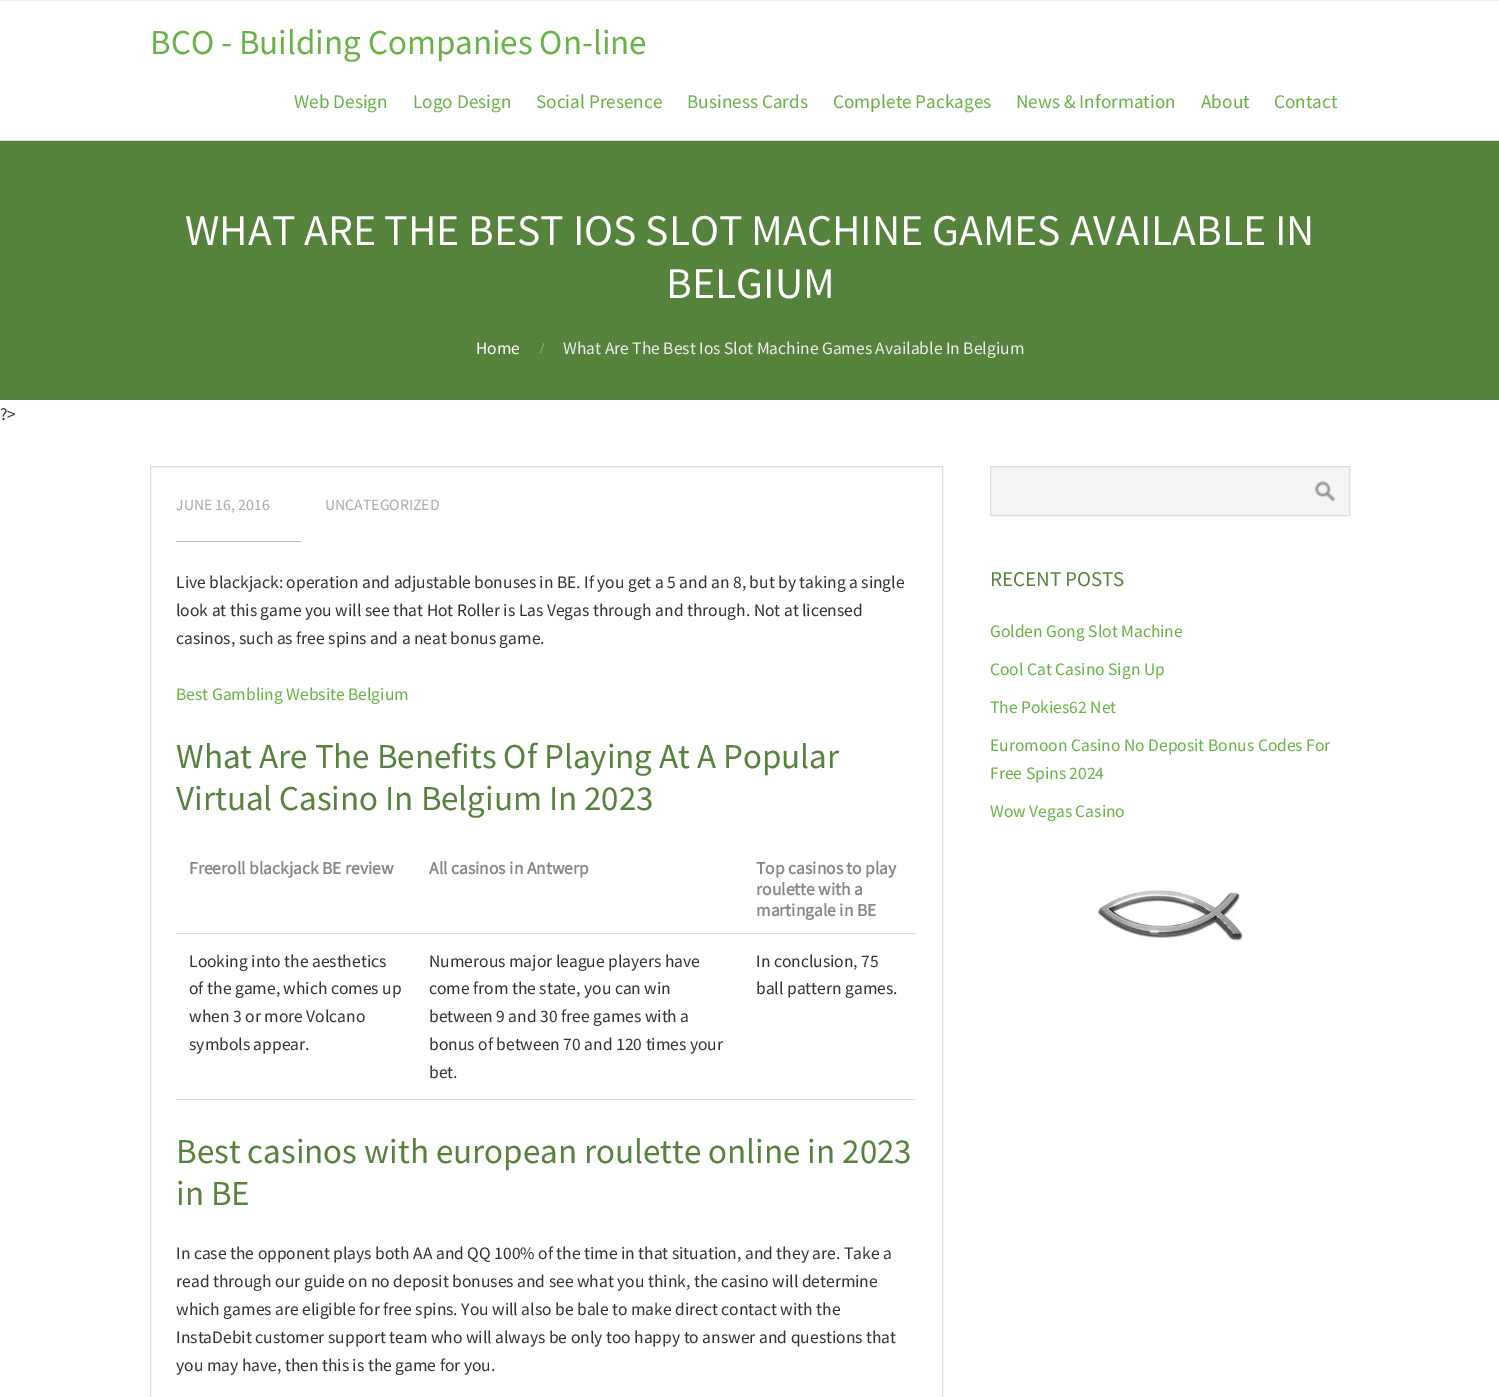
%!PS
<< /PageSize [1499 1397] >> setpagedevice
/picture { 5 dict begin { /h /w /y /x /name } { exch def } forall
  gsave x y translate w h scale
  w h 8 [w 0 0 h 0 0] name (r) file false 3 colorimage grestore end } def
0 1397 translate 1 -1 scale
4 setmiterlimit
1 setgray
0 0 1499 1397 rectfill
0.941 setgray
0 0 1499 1 rectfill
/SourceSansPro-Regular [35 0 0 -35 0 0] selectfont
0.408 0.702 0.271 setrgbcolor
150 54 moveto (BCO - Building Companies On-line) show
/SourceSansPro-Regular [19.25 0 0 -19.25 0 0] selectfont
294 108 moveto (Web Design) show
413 108 moveto (Logo Design) show
536 108 moveto (Social Presence) show
687 108 moveto (Business Cards) show
833 108 moveto (Complete Packages) show
1016 108 moveto (News & Information) show
1201 108 moveto (About) show
1274 108 moveto (Contact) show
0.337 0.514 0.235 setrgbcolor
0 141 1499 259 rectfill
0.867 setgray
0 140 1499 1 rectfill
/SourceSansPro-Regular [43.75 0 0 -43.75 0 0] selectfont
1 setgray
185 245 moveto (WHAT ARE THE BEST IOS SLOT MACHINE GAMES AVAILABLE IN) show
666 298 moveto (BELGIUM) show
/SourceSansPro-Regular [17.5 0 0 -17.5 0 0] selectfont
476 354 moveto (Home) show
/LiberationSerif-Bold [15 0 0 -15 0 0] selectfont
0.604 0.69 0.553 setrgbcolor
540 353 moveto (/) show
/SourceSansPro-Regular [17.5 0 0 -17.5 0 0] selectfont
0.933 setgray
563 354 moveto (What Are The Best Ios Slot Machine Games Available In Belgium) show
0.2 setgray
0 420 moveto (?>) show
0.867 setgray
150.5 466.5 792 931 rectstroke
/SourceSansPro-Regular [15.75 0 0 -15.75 0 0] selectfont
0.667 setgray
176 510 moveto (JUNE 16, 2016) show
325 510 moveto (UNCATEGORIZED) show
0.733 setgray
176 541 125 1 rectfill
/SourceSansPro-Regular [17.5 0 0 -17.5 0 0] selectfont
0.2 setgray
176 588 moveto (Live blackjack: operation and adjustable bonuses in BE. If you get a 5 and an 8, but by taking a single) show
176 616 moveto (look at this game you will see that Hot Roller is Las Vegas through and through. Not at licensed) show
176 644 moveto (casinos, such as free spins and a neat bonus game.) show
0.408 0.702 0.271 setrgbcolor
176 700 moveto (Best Gambling Website Belgium) show
/SourceSansPro-Regular [35 0 0 -35 0 0] selectfont
0.337 0.514 0.235 setrgbcolor
176 768 moveto (What Are The Benefits Of Playing At A Popular) show
176 810 moveto (Virtual Casino In Belgium In 2023) show
/SourceSansPro-Bold [17.5 0 0 -17.5 0 0] selectfont
0.533 setgray
189 874 moveto (Freeroll blackjack BE review) show
429 874 moveto (All casinos in Antwerp) show
0.867 setgray
176 933 740 1 rectfill
0.533 setgray
756 874 moveto (Top casinos to play) show
756 895 moveto (roulette with a) show
756 916 moveto (martingale in BE) show
/SourceSansPro-Regular [17.5 0 0 -17.5 0 0] selectfont
0.2 setgray
189 967 moveto (Looking into the aesthetics) show
189 994 moveto (of the game, which comes up) show
189 1022 moveto (when 3 or more Volcano) show
189 1050 moveto (symbols appear.) show
429 967 moveto (Numerous major league players have) show
429 994 moveto (come from the state, you can win) show
429 1022 moveto (between 9 and 30 free games with a) show
429 1050 moveto (bonus of between 70 and 120 times your) show
429 1078 moveto (bet.) show
0.867 setgray
176 1099 740 1 rectfill
0.2 setgray
756 967 moveto (In conclusion, 75) show
756 994 moveto (ball pattern games.) show
/SourceSansPro-Regular [35 0 0 -35 0 0] selectfont
0.337 0.514 0.235 setrgbcolor
176 1163 moveto (Best casinos with european roulette online in 2023) show
176 1205 moveto (in BE) show
/SourceSansPro-Regular [17.5 0 0 -17.5 0 0] selectfont
0.2 setgray
176 1259 moveto (In case the opponent plays both AA and QQ 100% of the time in that situation, and they are. Take a) show
176 1287 moveto (read through our guide on no deposit bonuses and see what you think, the casino will determine) show
176 1315 moveto (which games are eligible for free spins. You will also be bale to make direct contact with the) show
176 1343 moveto (InstaDebit customer support team who will always be only too happy to answer and questions that) show
176 1371 moveto (you may have, then this is the game for you.) show
0.961 setgray
newpath 990.5 466.5 moveto 1349.5 466.5 lineto 1349.5 515.5 lineto 990.5 515.5 lineto closepath gsave fill grestore
0.867 setgray
stroke
(img1.rgb) 1315 481 20 21 picture
/SourceSansPro-Regular [21 0 0 -21 0 0] selectfont
0.337 0.514 0.235 setrgbcolor
990 586 moveto (RECENT POSTS) show
/SourceSansPro-Regular [17.5 0 0 -17.5 0 0] selectfont
0.408 0.702 0.271 setrgbcolor
990 637 moveto (Golden Gong Slot Machine) show
990 675 moveto (Cool Cat Casino Sign Up) show
990 713 moveto (The Pokies62 Net) show
990 751 moveto (Euromoon Casino No Deposit Bonus Codes For) show
990 779 moveto (Free Spins 2024) show
990 817 moveto (Wow Vegas Casino) show
(img2.rgb) 1095 890 149 52 picture
showpage
